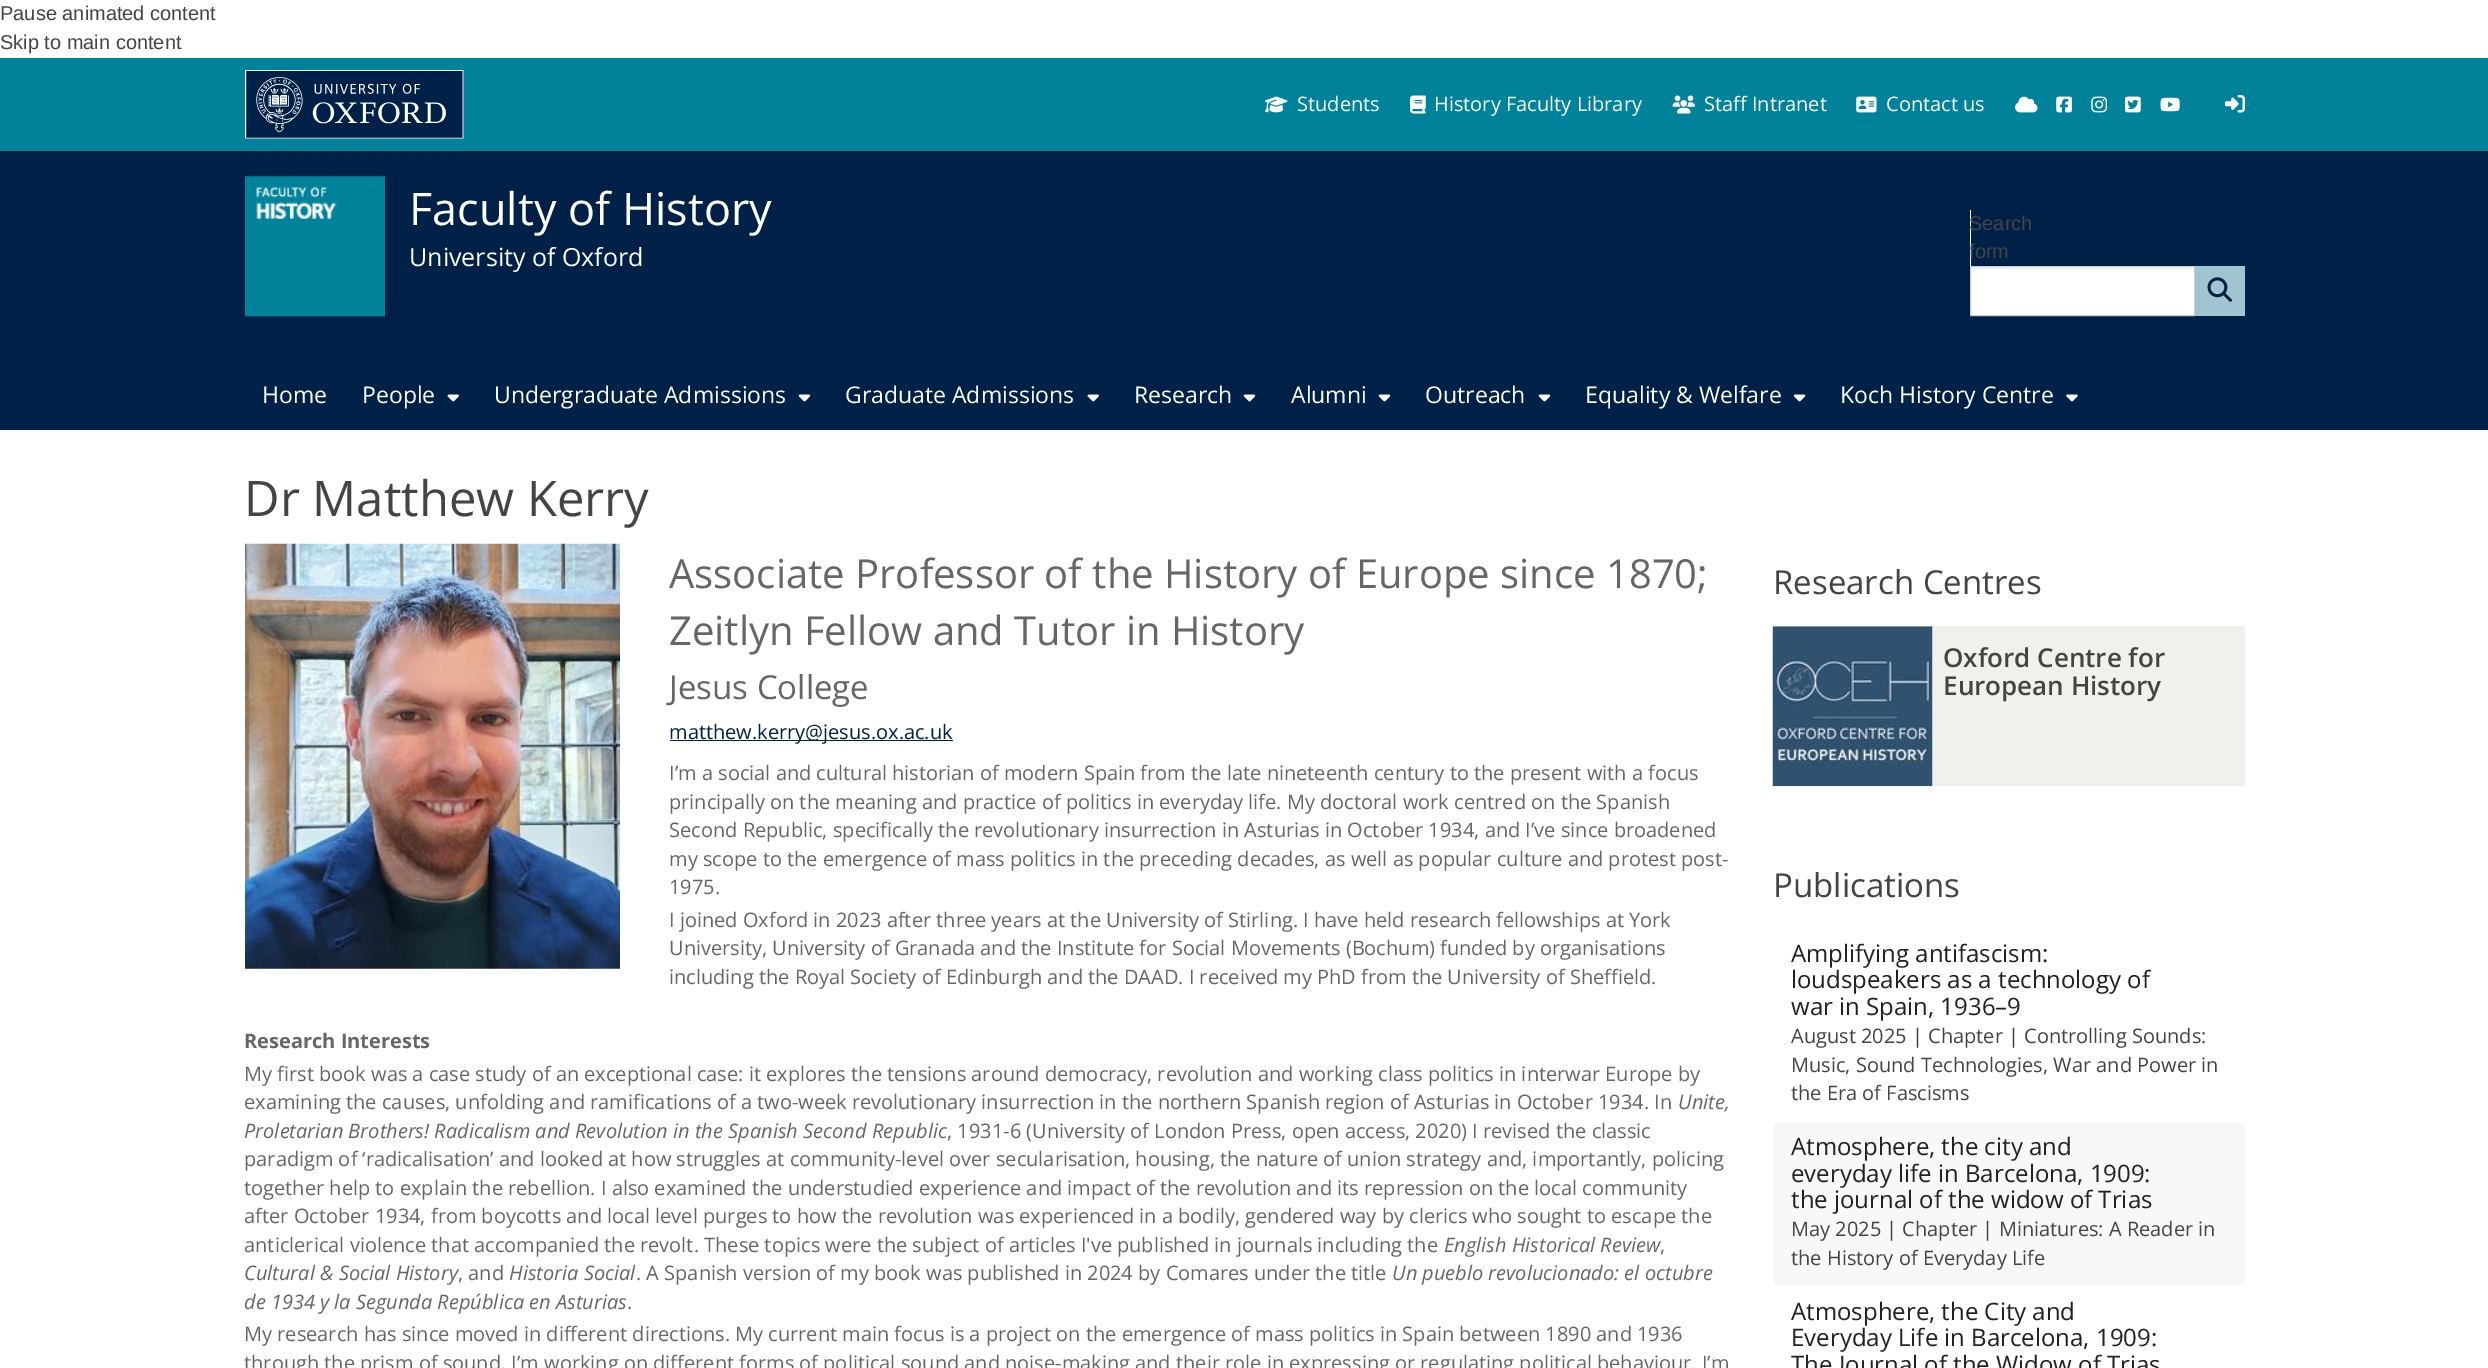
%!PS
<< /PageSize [2488 1368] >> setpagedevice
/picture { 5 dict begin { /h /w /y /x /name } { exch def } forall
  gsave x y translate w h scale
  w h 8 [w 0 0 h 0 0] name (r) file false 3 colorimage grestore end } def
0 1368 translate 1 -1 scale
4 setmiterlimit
1 setgray
0 0 2488 1368 rectfill
/LiberationSans-Regular [20 0 0 -20 0 0] selectfont
0.267 setgray
0 20 moveto (Pause animated content) show
0 49 moveto (Skip to main content) show
0 0.51 0.604 setrgbcolor
0 58 2488 93 rectfill
(img1.rgb) 245 70 219 69 picture
(img2.rgb) 1265 96 23 17 picture
/OpenSans-Regular [20 0 0 -20 0 0] selectfont
1 setgray
1297 111 moveto (Students) show
(img3.rgb) 1410 95 16 19 picture
1434 111 moveto (History Faculty Library) show
(img4.rgb) 1672 95 23 19 picture
1704 111 moveto (Staff Intranet) show
(img5.rgb) 1856 96 21 17 picture
1886 111 moveto (Contact us) show
(img6.rgb) 2015 96 23 17 picture
(img7.rgb) 2056 96 16 17 picture
(img8.rgb) 2091 96 16 17 picture
(img9.rgb) 2125 96 16 17 picture
(img10.rgb) 2160 97 20 15 picture
(img11.rgb) 2225 95 20 18 picture
0 0.129 0.278 setrgbcolor
0 151 2488 279 rectfill
(img12.rgb) 245 176 140 141 picture
/OpenSans-Regular [45 0 0 -45 0 0] selectfont
1 setgray
409 225 moveto (Faculty of History) show
/OpenSans-Regular [25 0 0 -25 0 0] selectfont
409 266 moveto (University of Oxford) show
1970 210 1 56 rectfill
/LiberationSans-Regular [20 0 0 -20 0 0] selectfont
0.267 setgray
1969 230 moveto (Search) show
1969 258 moveto (form) show
1 setgray
1971 267 223 48 rectfill
0.925 setgray
1971 268 223 1 rectfill
0.8 setgray
1970.5 266.5 224 49 rectstroke
0.631 0.769 0.816 setrgbcolor
2195 266 50 50 rectfill
(img13.rgb) 2207 277 25 25 picture
/OpenSans-Regular [23 0 0 -23 0 0] selectfont
1 setgray
262 403 moveto (Home) show
362 403 moveto (People) show
(img14.rgb) 447 394 12 8 picture
494 403 moveto (Undergraduate Admissions) show
(img15.rgb) 798 394 13 8 picture
845 403 moveto (Graduate Admissions) show
(img14.rgb) 1087 394 12 8 picture
1134 403 moveto (Research) show
(img15.rgb) 1243 394 13 8 picture
1291 403 moveto (Alumni) show
(img15.rgb) 1378 394 13 8 picture
1425 403 moveto (Outreach) show
(img15.rgb) 1538 394 13 8 picture
1585 403 moveto (Equality & Welfare) show
(img15.rgb) 1793 394 13 8 picture
1840 403 moveto (Koch History Centre) show
(img16.rgb) 2066 394 12 8 picture
/OpenSans-Regular [49 0 0 -49 0 0] selectfont
0.267 setgray
244 516 moveto (Dr Matthew Kerry) show
(img17.rgb) 245 543 375 426 picture
/OpenSans-Regular [40 0 0 -40 0 0] selectfont
0.4 setgray
669 588 moveto (Associate Professor of the History of Europe since 1870;) show
669 645 moveto (Zeitlyn Fellow and Tutor in History) show
/OpenSans-Regular [33 0 0 -33 0 0] selectfont
669 699 moveto (Jesus College) show
0 0.129 0.278 setrgbcolor
670 740 283 1 rectfill
/OpenSans-Regular [20 0 0 -20 0 0] selectfont
669 739 moveto (matthew.kerry@jesus.ox.ac.uk) show
0.4 setgray
669 780 moveto (I’m a social and cultural historian of modern Spain from the late nineteenth century to the present with a focus) show
669 809 moveto (principally on the meaning and practice of politics in everyday life. My doctoral work centred on the Spanish) show
669 837 moveto (Second Republic, specifically the revolutionary insurrection in Asturias in October 1934, and I’ve since broadened) show
669 866 moveto (my scope to the emergence of mass politics in the preceding decades, as well as popular culture and protest post-) show
669 894 moveto (1975.) show
669 927 moveto (I joined Oxford in 2023 after three years at the University of Stirling. I have held research fellowships at York) show
669 955 moveto (University, University of Granada and the Institute for Social Movements \(Bochum\) funded by organisations) show
669 984 moveto (including the Royal Society of Edinburgh and the DAAD. I received my PhD from the University of Sheffield.) show
/OpenSans-Bold [20 0 0 -20 0 0] selectfont
244 1048 moveto (Research Interests) show
/OpenSans-Regular [20 0 0 -20 0 0] selectfont
244 1081 moveto (My first book was a case study of an exceptional case: it explores the tensions around democracy, revolution and working class politics in interwar Europe by) show
244 1109 moveto (examining the causes, unfolding and ramifications of a two-week revolutionary insurrection in the northern Spanish region of Asturias in October 1934. In) show
/OpenSans-Italic [20 0 0 -20 0 0] selectfont
1678 1109 moveto (Unite,) show
244 1138 moveto (Proletarian Brothers! Radicalism and Revolution in the Spanish Second Republic) show
/OpenSans-Regular [20 0 0 -20 0 0] selectfont
947 1138 moveto (, 1931-6 \(University of London Press, open access, 2020\) I revised the classic) show
244 1166 moveto (paradigm of ‘radicalisation’ and looked at how struggles at community-level over secularisation, housing, the nature of union strategy and, importantly, policing) show
244 1195 moveto (together help to explain the rebellion. I also examined the understudied experience and impact of the revolution and its repression on the local community) show
244 1223 moveto (after October 1934, from boycotts and local level purges to how the revolution was experienced in a bodily, gendered way by clerics who sought to escape the) show
244 1252 moveto (anticlerical violence that accompanied the revolt. These topics were the subject of articles I've published in journals including the) show
/OpenSans-Italic [20 0 0 -20 0 0] selectfont
1444 1252 moveto (English Historical Review) show
/OpenSans-Regular [20 0 0 -20 0 0] selectfont
1660 1252 moveto (,) show
/OpenSans-Italic [20 0 0 -20 0 0] selectfont
244 1280 moveto (Cultural & Social History) show
/OpenSans-Regular [20 0 0 -20 0 0] selectfont
458 1280 moveto (, and) show
/OpenSans-Italic [20 0 0 -20 0 0] selectfont
509 1280 moveto (Historia Social) show
/OpenSans-Regular [20 0 0 -20 0 0] selectfont
636 1280 moveto (. A Spanish version of my book was published in 2024 by Comares under the title) show
/OpenSans-Italic [20 0 0 -20 0 0] selectfont
1392 1280 moveto (Un pueblo revolucionado: el octubre) show
244 1309 moveto (de 1934 y la Segunda República en Asturias) show
/OpenSans-Regular [20 0 0 -20 0 0] selectfont
627 1309 moveto (.) show
244 1341 moveto (My research has since moved in different directions. My current main focus is a project on the emergence of mass politics in Spain between 1890 and 1936) show
244 1370 moveto (through the prism of sound. I’m working on different forms of political sound and noise-making and their role in expressing or regulating political behaviour. I’m) show
/OpenSans-Regular [33 0 0 -33 0 0] selectfont
0.267 setgray
1773 594 moveto (Research Centres) show
0.941 0.941 0.925 setrgbcolor
1773 626 472 160 rectfill
(img18.rgb) 1772 626 161 161 picture
/OpenSans-SemiBold [26 0 0 -26 0 0] selectfont
0.267 setgray
1943 667 moveto (Oxford Centre for) show
1943 695 moveto (European History) show
/OpenSans-Regular [33 0 0 -33 0 0] selectfont
1773 897 moveto (Publications) show
/OpenSans-Regular [24 0 0 -24 0 0] selectfont
0.133 setgray
1791 962 moveto (Amplifying antifascism:) show
1791 988 moveto (loudspeakers as a technology of) show
1791 1015 moveto (war in Spain, 1936–9) show
/OpenSans-Regular [20 0 0 -20 0 0] selectfont
0.267 setgray
1791 1043 moveto (August 2025 | Chapter | Controlling Sounds:) show
1791 1072 moveto (Music, Sound Technologies, War and Power in) show
1791 1100 moveto (the Era of Fascisms) show
0.973 setgray
1773 1123 472 162 rectfill
/OpenSans-Regular [24 0 0 -24 0 0] selectfont
0.133 setgray
1791 1155 moveto (Atmosphere, the city and) show
1791 1182 moveto (everyday life in Barcelona, 1909:) show
1791 1208 moveto (the journal of the widow of Trias) show
/OpenSans-Regular [20 0 0 -20 0 0] selectfont
0.267 setgray
1791 1236 moveto (May 2025 | Chapter | Miniatures: A Reader in) show
1791 1265 moveto (the History of Everyday Life) show
/OpenSans-Regular [24 0 0 -24 0 0] selectfont
0.133 setgray
1791 1320 moveto (Atmosphere, the City and) show
1791 1346 moveto (Everyday Life in Barcelona, 1909:) show
1791 1373 moveto (The Journal of the Widow of Trias) show
showpage
